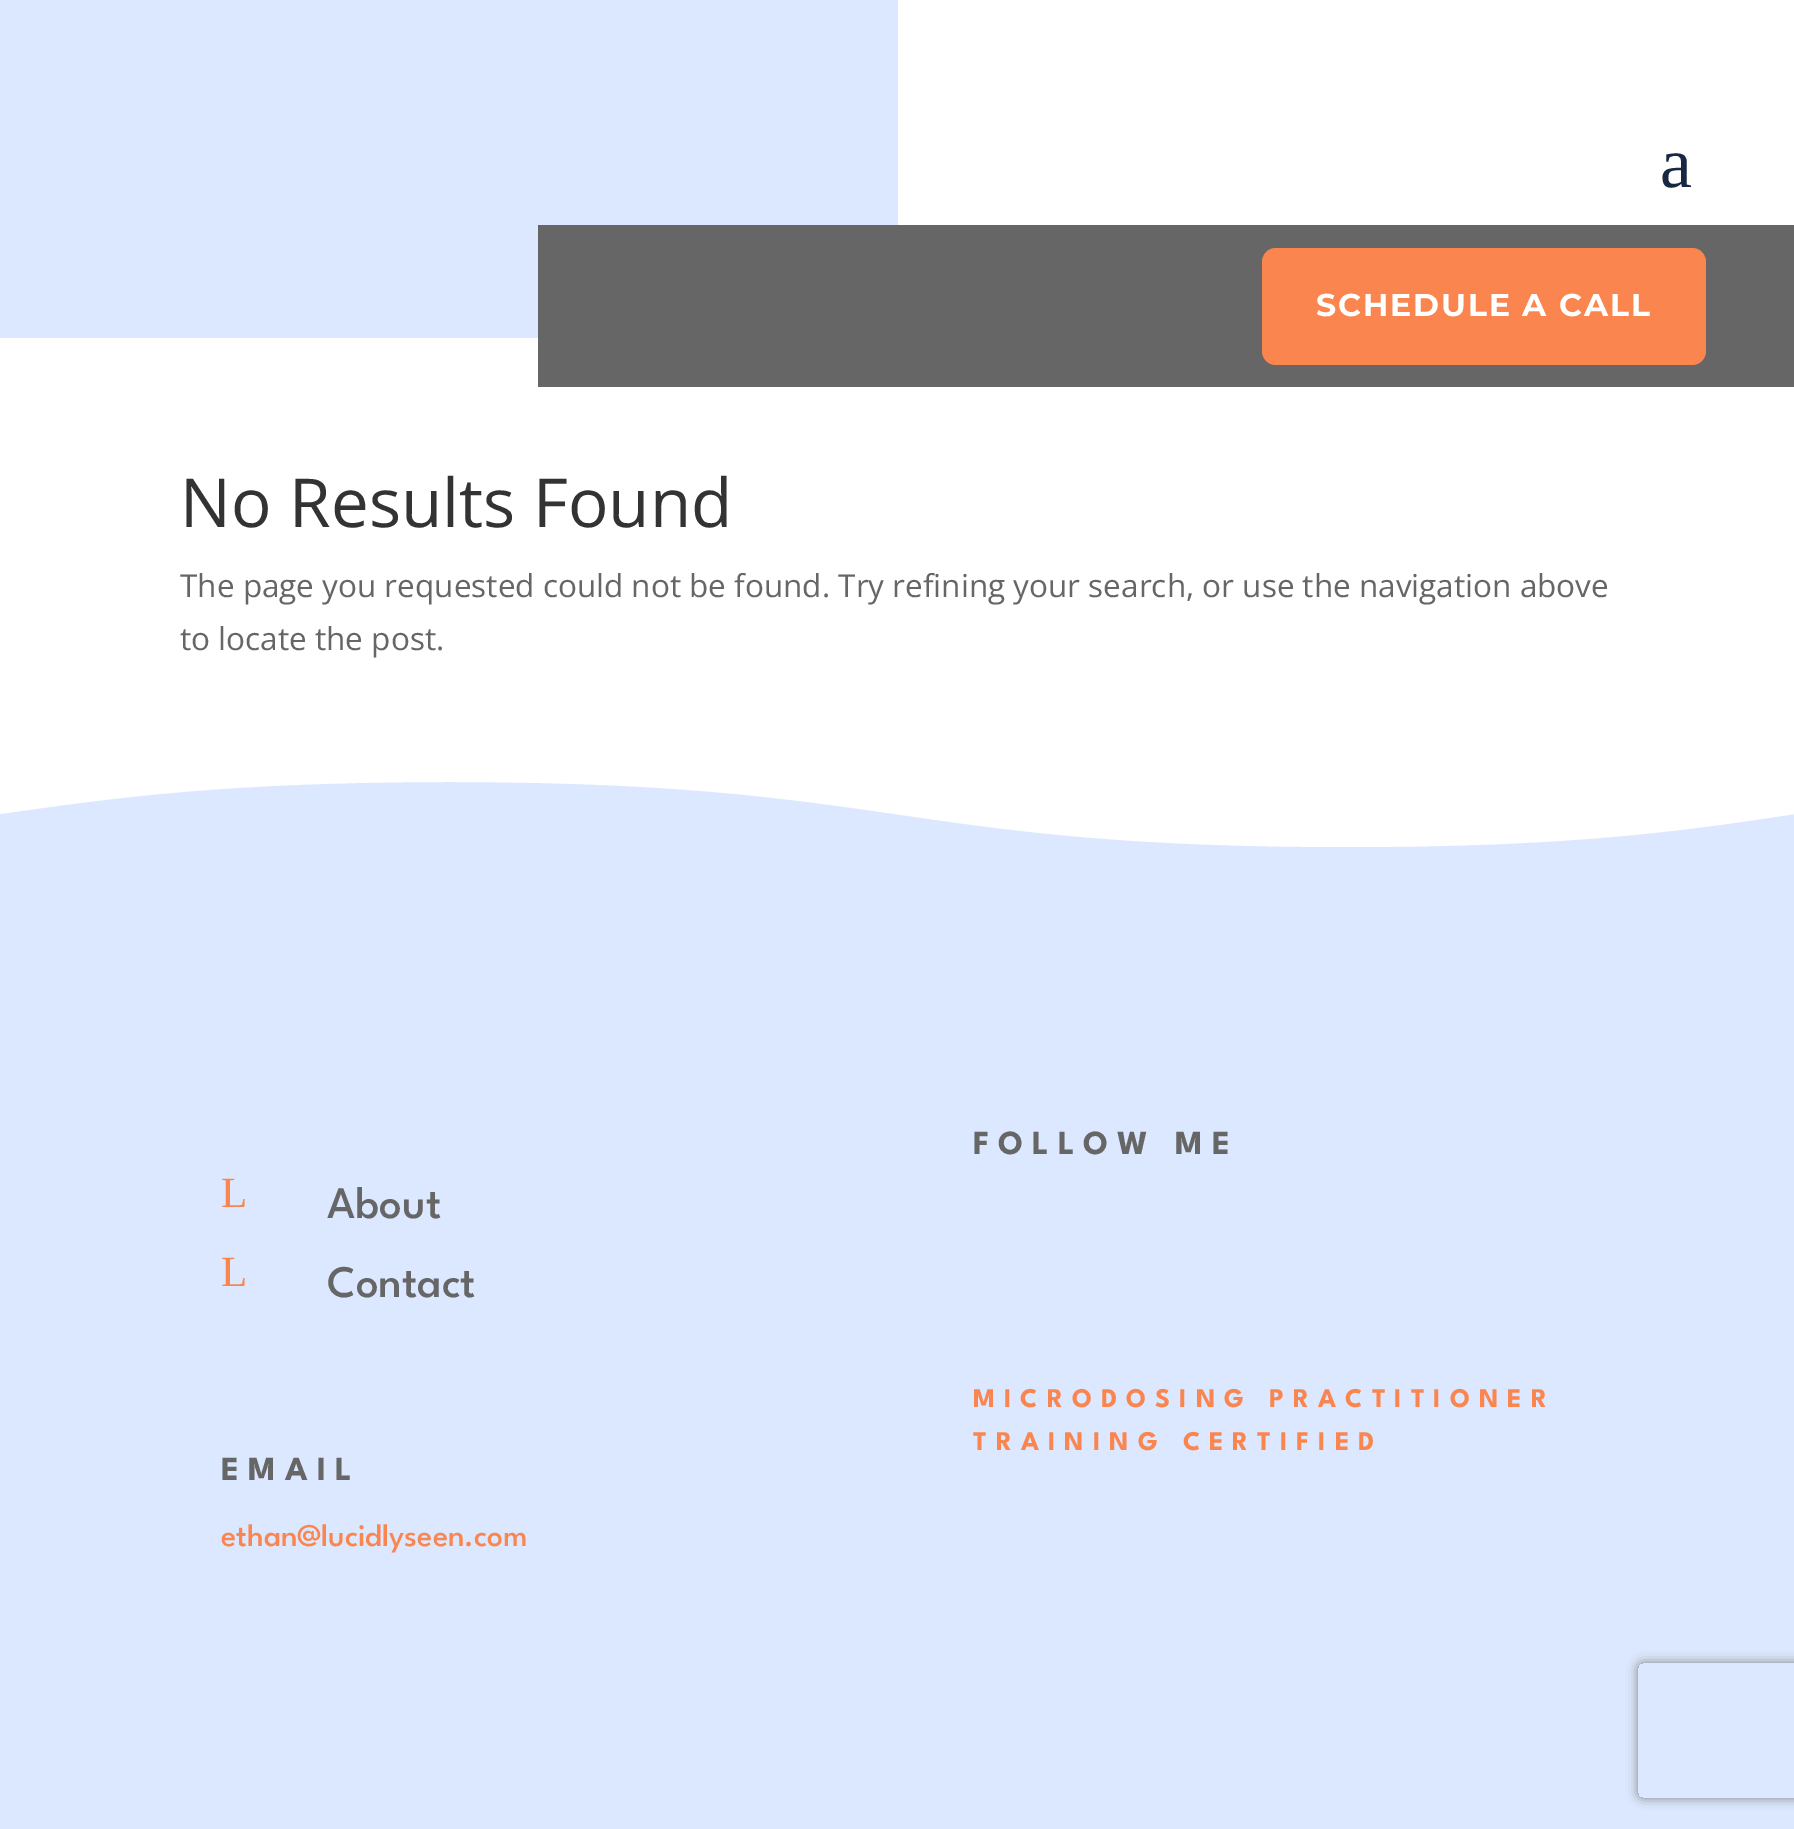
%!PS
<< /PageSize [1794 1829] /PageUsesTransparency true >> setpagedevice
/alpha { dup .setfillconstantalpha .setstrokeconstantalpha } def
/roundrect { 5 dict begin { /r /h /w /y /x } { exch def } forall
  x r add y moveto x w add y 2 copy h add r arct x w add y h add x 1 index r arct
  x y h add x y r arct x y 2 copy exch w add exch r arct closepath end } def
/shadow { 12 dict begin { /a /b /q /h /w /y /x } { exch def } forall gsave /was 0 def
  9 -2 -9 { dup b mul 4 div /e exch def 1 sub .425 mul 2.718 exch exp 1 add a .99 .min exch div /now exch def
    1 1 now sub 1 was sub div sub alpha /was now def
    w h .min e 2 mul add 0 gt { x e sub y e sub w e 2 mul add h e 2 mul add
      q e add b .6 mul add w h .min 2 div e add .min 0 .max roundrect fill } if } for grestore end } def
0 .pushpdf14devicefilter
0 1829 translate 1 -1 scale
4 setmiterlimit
1 setgray
0 0 1794 1829 rectfill
0.863 0.91 1 setrgbcolor
0 0 898 338 rectfill
/LiberationSerif-Regular [72 0 0 -72 0 0] selectfont
0.094 0.157 0.267 setrgbcolor
1660 187 moveto (a) show
0.4 setgray
538 225 1256 162 rectfill
0.98 0.522 0.31 setrgbcolor
1262 248 444 117 14 roundrect fill
/Montserrat-Bold [31.5 0 0 -31.5 0 0] selectfont
1 setgray
1316 316 moveto 1.9 0 (SCHEDULE A CALL) ashow
/OpenSans-Regular [67.5 0 0 -67.5 0 0] selectfont
0.2 setgray
180 527 moveto (No Results Found) show
/OpenSans-Regular [31.5 0 0 -31.5 0 0] selectfont
0.4 setgray
180 597 moveto (The page you requested could not be found. Try refining your search, or use the navigation above) show
180 650 moveto (to locate the post.) show
0.863 0.91 1 setrgbcolor
0 782 1794 1047 rectfill
gsave
0 761 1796 108 rectclip
1 setgray
newpath 449 782 moveto 224 782 112 798 0 814 curveto 0 760 lineto 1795 760 lineto 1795 814 lineto 1683 831 1571 847 1347 847 curveto 898 847 898 782 449 782 curveto closepath fill
grestore
/LiberationSerif-Regular [43 0 0 -43 0 0] selectfont
0.98 0.522 0.31 setrgbcolor
221 1207 moveto (L) show
/LeagueSpartan-Medium [45 0 0 -45 0 0] selectfont
0.4 setgray
327 1218 moveto (About) show
/LiberationSerif-Regular [43 0 0 -43 0 0] selectfont
0.98 0.522 0.31 setrgbcolor
221 1286 moveto (L) show
/LeagueSpartan-Medium [45 0 0 -45 0 0] selectfont
0.4 setgray
327 1297 moveto (Contact) show
/LeagueSpartan-Bold [33.75 0 0 -33.75 0 0] selectfont
221 1480 moveto 9 0 (EMAIL) ashow
/LeagueSpartan-Medium [31.5 0 0 -31.5 0 0] selectfont
0.98 0.522 0.31 setrgbcolor
221 1546 moveto (ethan@lucidlyseen.com) show
/LeagueSpartan-Bold [33.75 0 0 -33.75 0 0] selectfont
0.4 setgray
973 1154 moveto 9 0 (FOLLOW ME) ashow
/LeagueSpartan-Bold [27 0 0 -27 0 0] selectfont
0.98 0.522 0.31 setrgbcolor
973 1407 moveto 9 0 (MICRODOSING PRACTITIONER) ashow
973 1450 moveto 9 0 (TRAINING CERTIFIED) ashow
gsave
newpath 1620 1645 moveto 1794 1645 lineto 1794 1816 lineto 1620 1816 lineto closepath 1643 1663 moveto 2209 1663 lineto 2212 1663 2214 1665 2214 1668 curveto 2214 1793 lineto 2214 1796 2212 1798 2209 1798 curveto 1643 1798 lineto 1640 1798 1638 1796 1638 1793 curveto 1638 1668 lineto 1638 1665 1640 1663 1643 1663 curveto closepath eoclip newpath
0.502 setgray
1638 1663 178 135 5 5.5 1 shadow
grestore
.poppdf14devicefilter showpage
